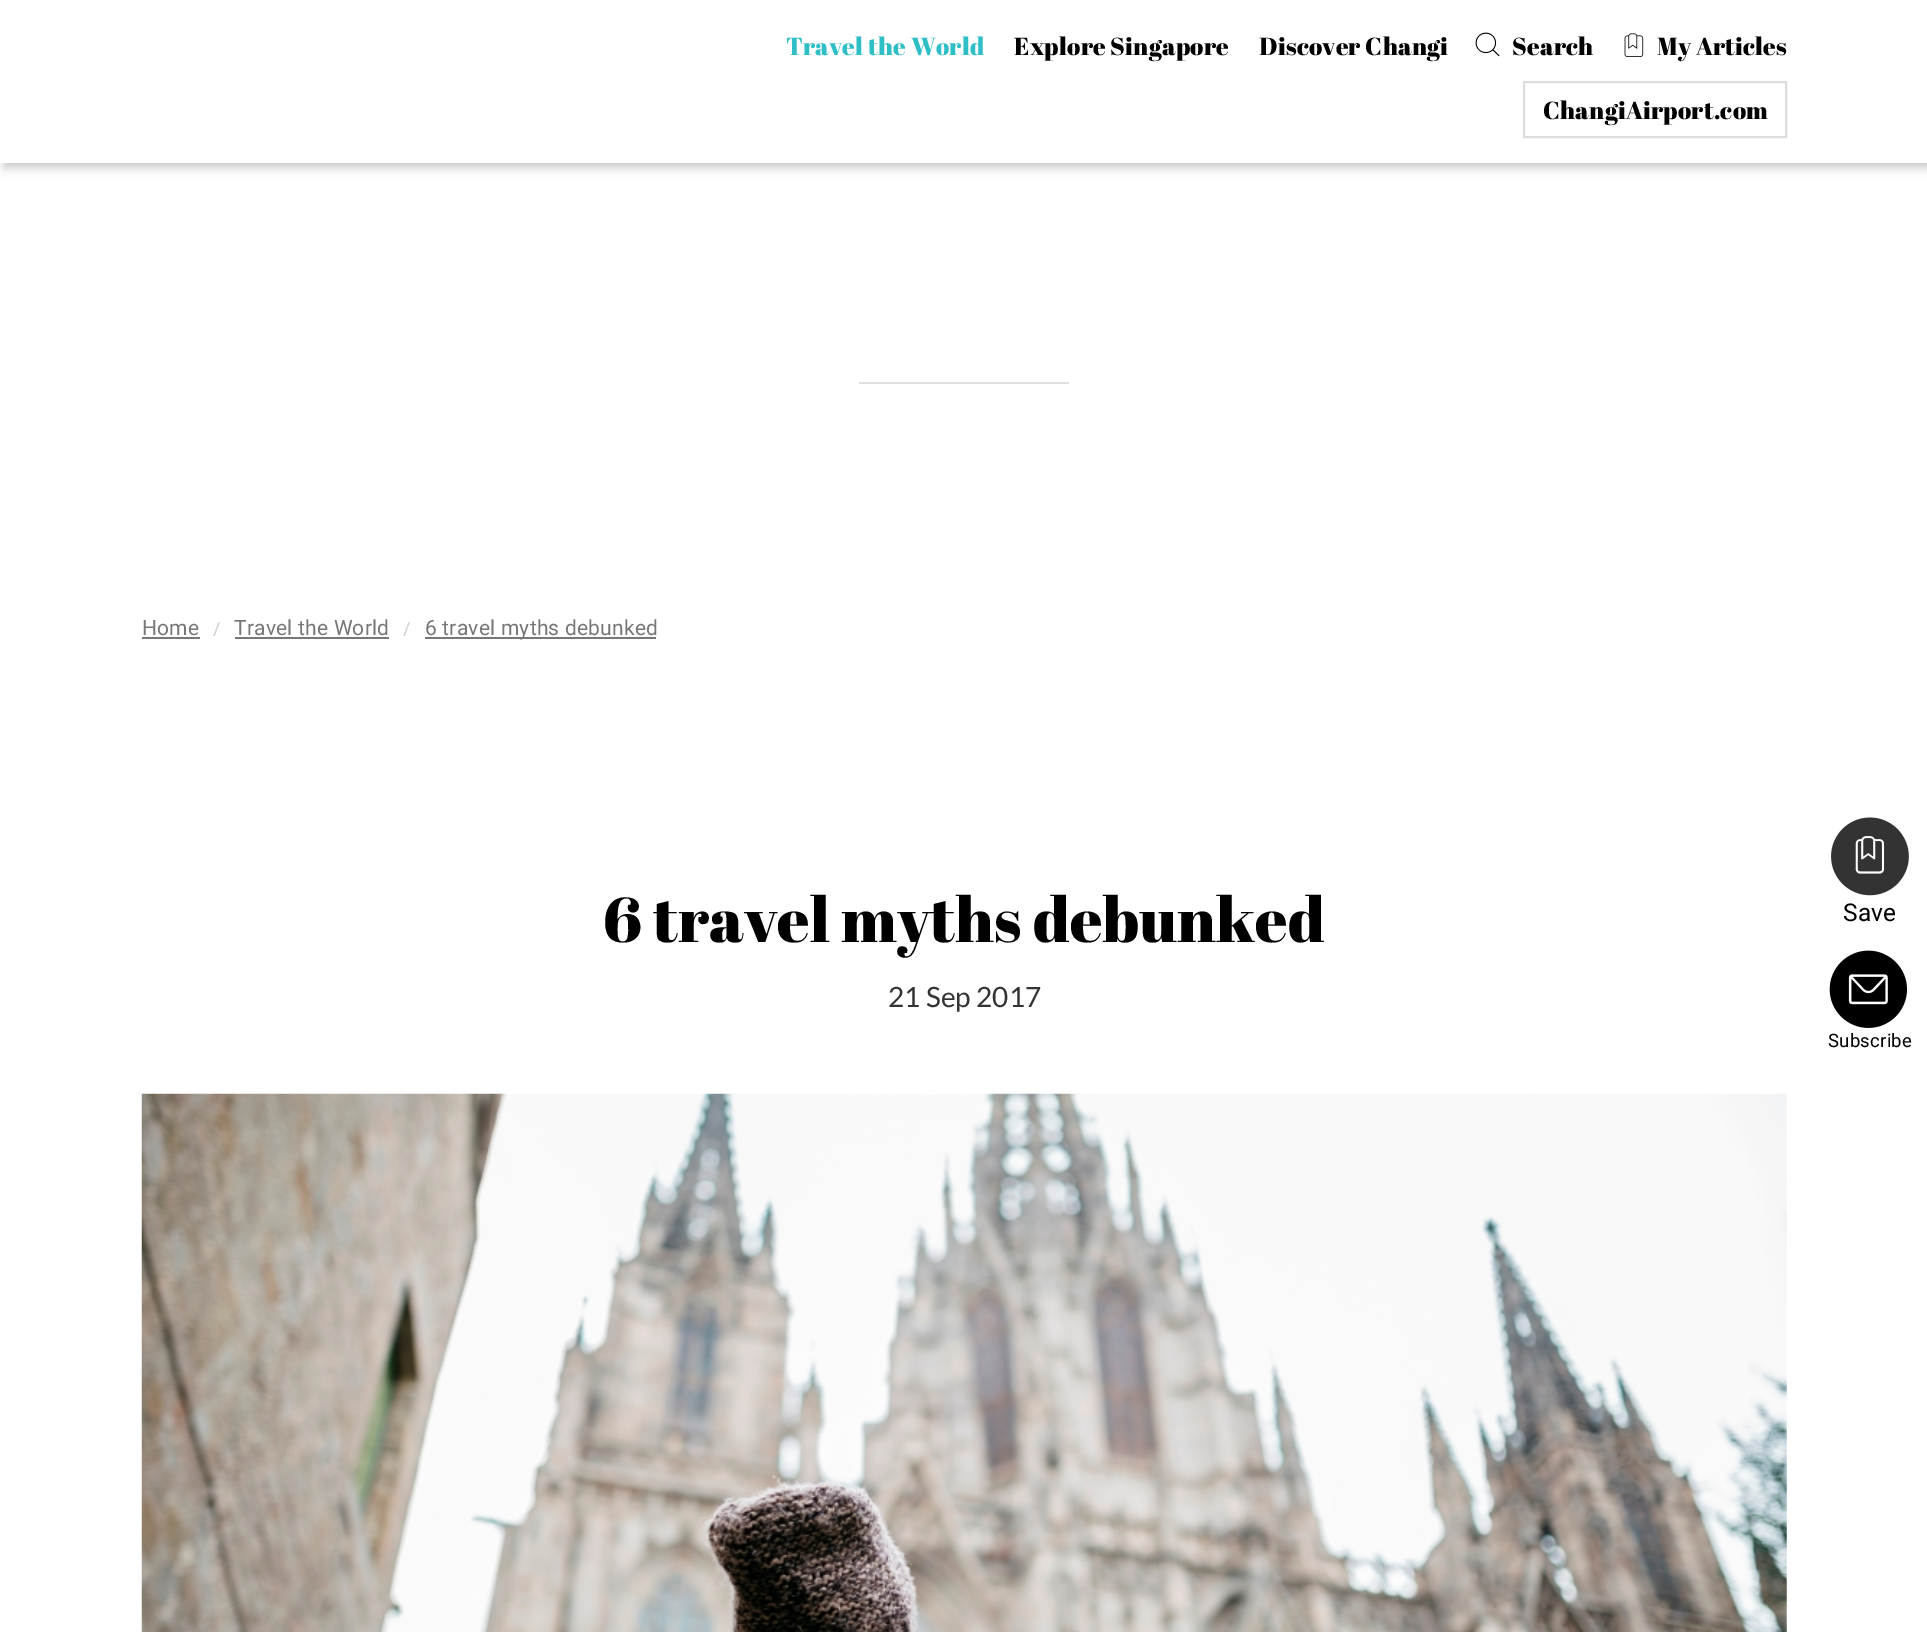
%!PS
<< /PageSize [1927 1632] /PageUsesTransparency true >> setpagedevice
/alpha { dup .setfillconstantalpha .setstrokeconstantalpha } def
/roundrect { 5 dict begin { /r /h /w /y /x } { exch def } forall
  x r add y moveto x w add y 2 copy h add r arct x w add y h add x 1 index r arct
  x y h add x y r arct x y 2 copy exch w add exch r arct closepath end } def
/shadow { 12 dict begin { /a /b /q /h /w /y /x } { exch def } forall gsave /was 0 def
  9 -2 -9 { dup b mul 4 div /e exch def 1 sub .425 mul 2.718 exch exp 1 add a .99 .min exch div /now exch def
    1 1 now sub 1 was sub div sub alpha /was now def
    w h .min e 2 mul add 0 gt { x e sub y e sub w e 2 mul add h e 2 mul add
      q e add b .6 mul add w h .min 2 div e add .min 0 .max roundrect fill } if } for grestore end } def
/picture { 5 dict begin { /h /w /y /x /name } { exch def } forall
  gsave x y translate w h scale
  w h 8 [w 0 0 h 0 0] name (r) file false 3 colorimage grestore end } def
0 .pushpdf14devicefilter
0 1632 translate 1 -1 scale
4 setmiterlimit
1 setgray
0 0 1927 1632 rectfill
0 setgray
4 5 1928 163 0 4.5 0.2 shadow
1 setgray
0 0 1927 163 rectfill
/AbrilFatface-Regular [24.5 0 0 -24.5 0 0] selectfont
0.18 0.745 0.773 setrgbcolor
786 55 moveto 0.25 0 (Travel the World) ashow
0 setgray
1014 55 moveto 0.25 0 (Explore Singapore) ashow
1259 55 moveto 0.25 0 (Discover Changi) ashow
(img1.rgb) 1475 32 25 25 picture
1512 55 moveto 0.25 0 (Search) ashow
(img2.rgb) 1624 33 20 24 picture
1657 55 moveto 0.25 0 (My Articles) ashow
0.867 setgray
2 setlinewidth
1524 82 262 55 rectstroke
0 setgray
1543 119 moveto 0.25 0 (ChangiAirport.com) ashow
0.878 setgray
859 382 210 2 rectfill
/Roboto-Regular [21 0 0 -21 0 0] selectfont
0.467 setgray
142 635 moveto 0.2 0 (Home) ashow
142 637 58 2 rectfill
/Roboto-Regular [18 0 0 -18 0 0] selectfont
0.8 setgray
213 635 moveto 0.2 0 (/) ashow
/Roboto-Regular [21 0 0 -21 0 0] selectfont
0.467 setgray
234 635 moveto 0.2 0 (Travel the World) ashow
235 637 154 2 rectfill
/Roboto-Regular [18 0 0 -18 0 0] selectfont
0.8 setgray
403 635 moveto 0.2 0 (/) ashow
0.467 setgray
425 637 231 2 rectfill
/Roboto-Regular [21 0 0 -21 0 0] selectfont
425 635 moveto 0.2 0 (6 travel myths debunked) ashow
/AbrilFatface-Regular [63 0 0 -63 0 0] selectfont
0 setgray
603 942 moveto (6 travel myths debunked) show
/Lato-Regular [28 0 0 -28 0 0] selectfont
0.2 setgray
888 1007 moveto (21 Sep 2017) show
(img3.rgb) 141 1093 1646 539 picture
(img4.rgb) 1831 817 78 79 picture
/Roboto-Regular [24.5 0 0 -24.5 0 0] selectfont
0 setgray
1843 921 moveto 0.25 0 (Save) ashow
(img5.rgb) 1829 950 79 78 picture
/Roboto-Regular [18.5 0 0 -18.5 0 0] selectfont
1828 1047 moveto 0.25 0 (Subscribe) ashow
.poppdf14devicefilter showpage
